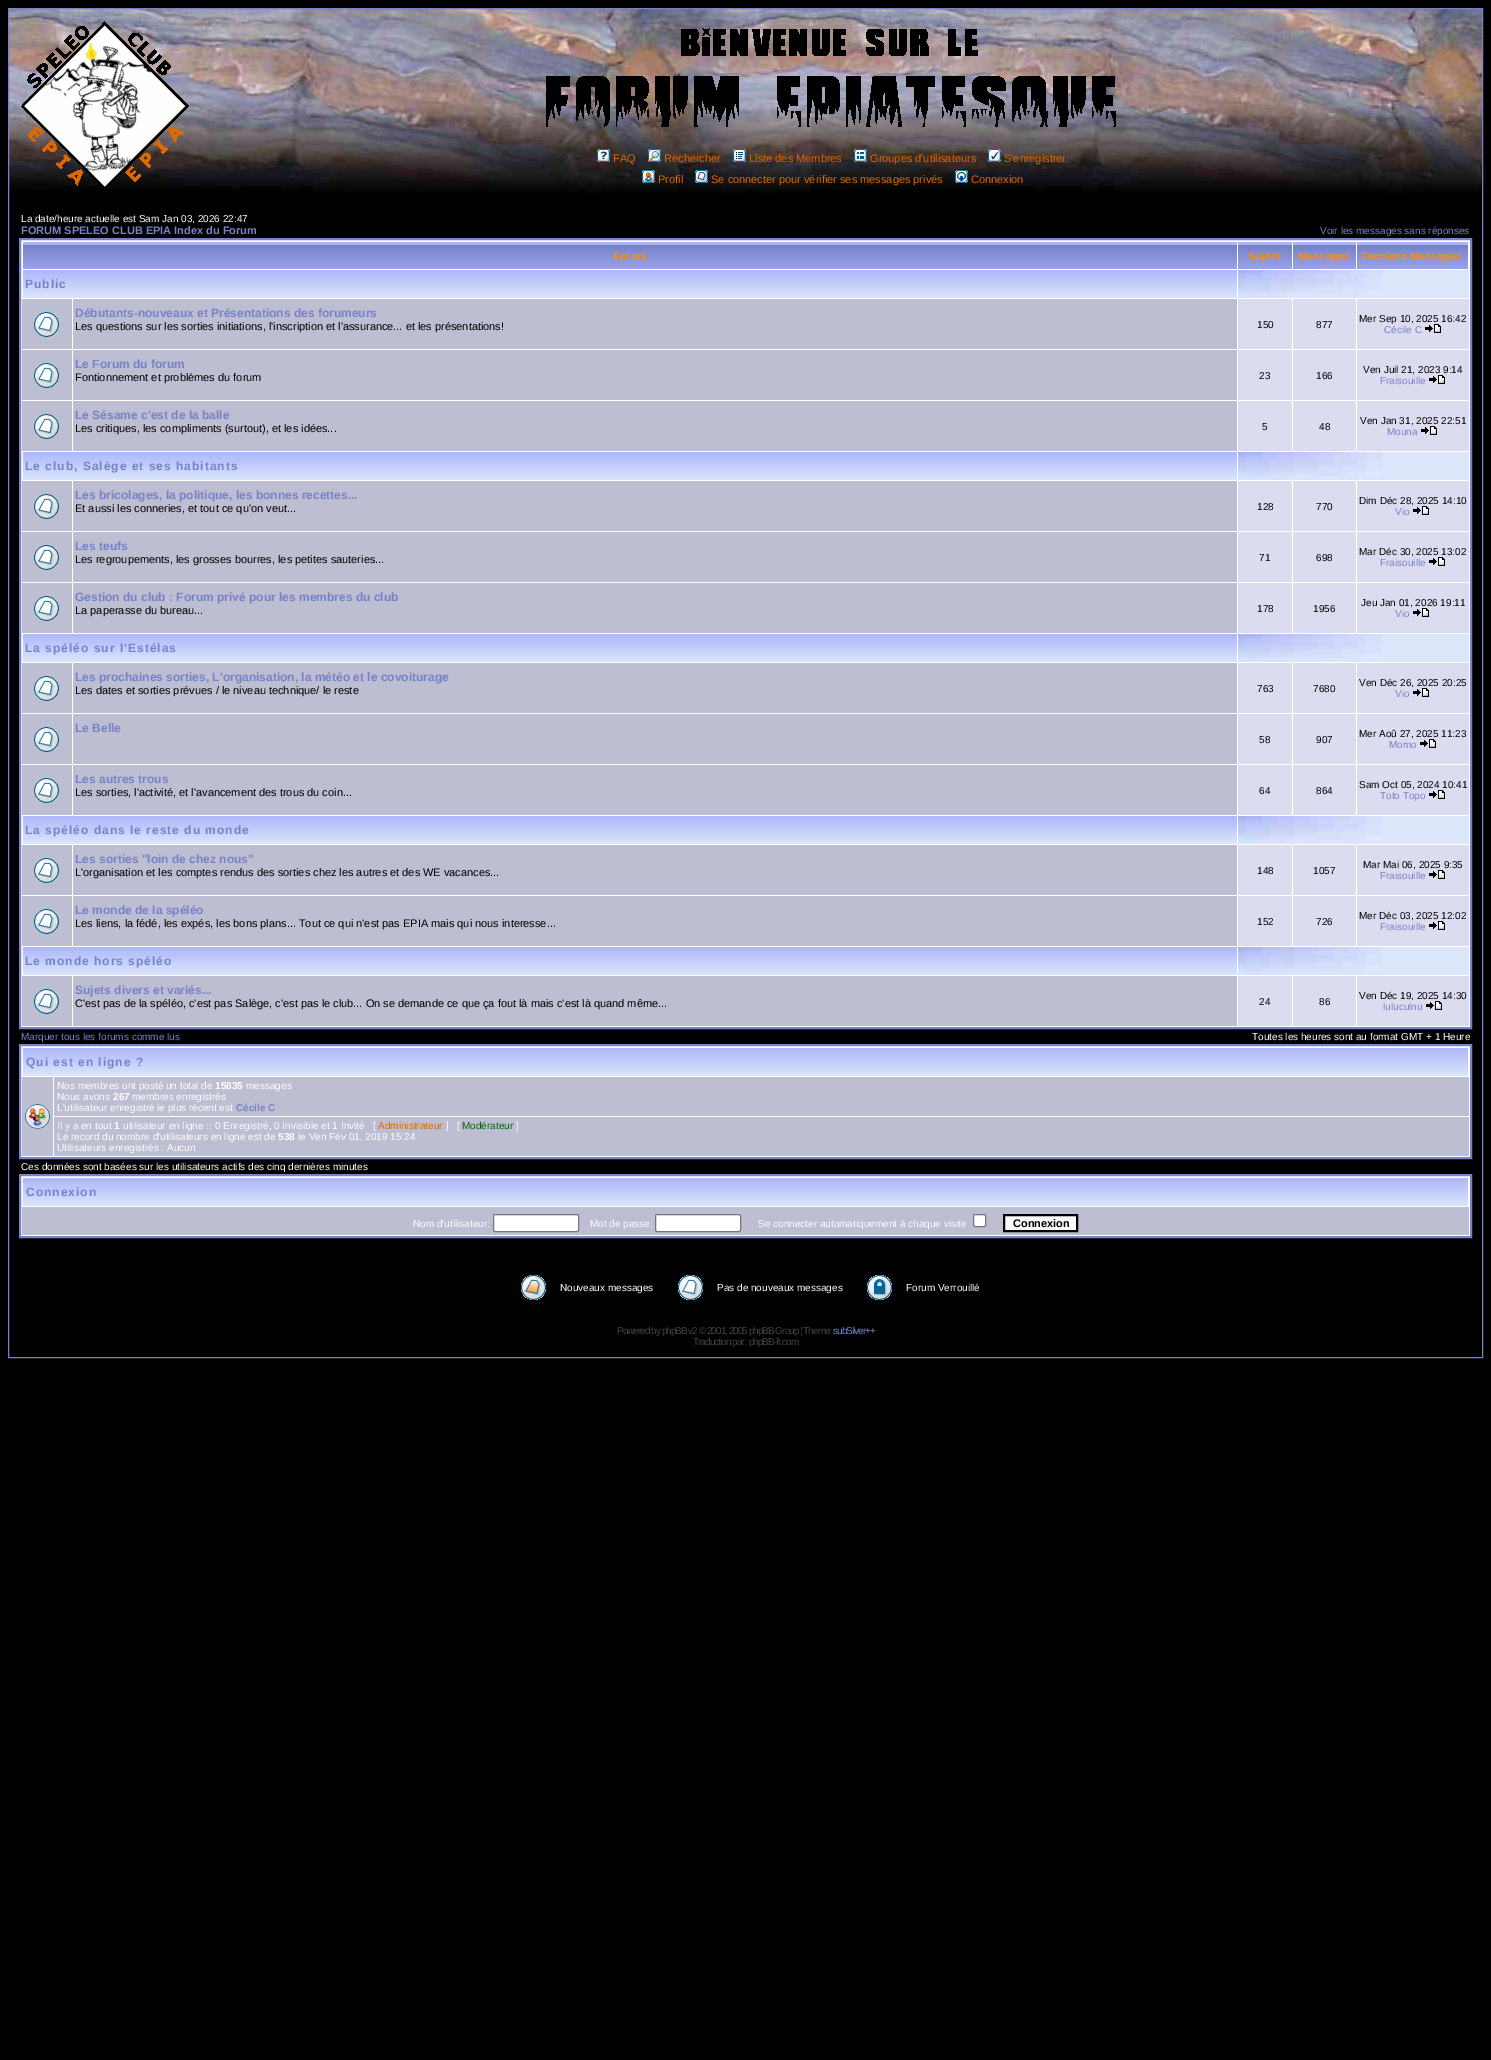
%!PS
<< /PageSize [1491 2060] >> setpagedevice
/roundrect { 5 dict begin { /r /h /w /y /x } { exch def } forall
  x r add y moveto x w add y 2 copy h add r arct x w add y h add x 1 index r arct
  x y h add x y r arct x y 2 copy exch w add exch r arct closepath end } def
/picture { 5 dict begin { /h /w /y /x /name } { exch def } forall
  gsave x y translate w h scale
  w h 8 [w 0 0 h 0 0] name (r) file false 3 colorimage grestore end } def
0 2060 translate 1 -1 scale
4 setmiterlimit
0 setgray
0 0 1491 2060 rectfill
(img1.rgb) 9 9 1473 184 picture
0.471 0.51 0.784 setrgbcolor
8.5 8.5 1474 1349 rectstroke
(img2.rgb) 21 21 168 167 picture
(img3.rgb) 546 28 570 99 picture
(img4.rgb) 597 149 13 13 picture
/LiberationSans-Regular [11 0 0 -11 0 0] selectfont
0.867 0.412 0 setrgbcolor
613 162 moveto (FAQ) show
(img5.rgb) 648 149 13 13 picture
664 162 moveto (Rechercher) show
(img6.rgb) 733 149 13 13 picture
749 162 moveto (Liste des Membres) show
(img7.rgb) 854 149 13 13 picture
870 162 moveto (Groupes d'utilisateurs) show
(img8.rgb) 988 149 13 13 picture
1004 162 moveto (S'enregistrer) show
(img9.rgb) 642 170 13 13 picture
658 183 moveto (Profil) show
(img10.rgb) 695 170 13 13 picture
711 183 moveto (Se connecter pour vérifier ses messages privés) show
(img11.rgb) 955 170 13 13 picture
971 183 moveto (Connexion) show
/LiberationSans-Regular [10 0 0 -10 0 0] selectfont
1 setgray
21 222 moveto (La date/heure actuelle est Sam Jan 03, 2026 22:47) show
/LiberationSans-Bold [11 0 0 -11 0 0] selectfont
0.471 0.51 0.784 setrgbcolor
21 234 moveto (FORUM SPELEO CLUB EPIA Index du Forum) show
/LiberationSans-Regular [10 0 0 -10 0 0] selectfont
1320 234 moveto (Voir les messages sans réponses) show
1 setgray
newpath 20 239 moveto 1471 239 lineto 1471 1028 lineto 20 1028 lineto closepath gsave fill grestore
0.471 0.51 0.784 setrgbcolor
2 setlinewidth
stroke
(img12.rgb) 23 242 1214 27 picture
/LiberationSans-Bold [11 0 0 -11 0 0] selectfont
1 0.553 0 setrgbcolor
613 260 moveto (Forum) show
(img13.rgb) 1238 242 54 27 picture
1248 260 moveto (Sujets) show
(img14.rgb) 1293 242 63 27 picture
1298 260 moveto (Messages) show
(img15.rgb) 1357 242 111 27 picture
1362 260 moveto (Derniers Messages) show
(img16.rgb) 23 270 1214 28 picture
/LiberationSans-Bold [12 0 0 -12 0 0] selectfont
0.471 0.51 0.784 setrgbcolor
25 288 moveto 1 0 (Public) ashow
0.863 0.902 0.98 setrgbcolor
1382 270 87 28 rectfill
(img17.rgb) 1238 270 144 28 picture
0.745 0.745 0.824 setrgbcolor
22 299 50 50 rectfill
(img18.rgb) 34 312 25 25 picture
73 299 1164 50 rectfill
0.471 0.51 0.784 setrgbcolor
75 317 moveto (Débutants-nouveaux et Présentations des forumeurs) show
/LiberationSans-Regular [11 0 0 -11 0 0] selectfont
0 setgray
75 330 moveto (Les questions sur les sorties initiations, l'inscription et l'assurance... et les présentations!) show
0.863 0.863 0.941 setrgbcolor
1238 299 54 50 rectfill
/LiberationSans-Regular [10 0 0 -10 0 0] selectfont
0 setgray
1257 328 moveto (150) show
0.863 0.863 0.941 setrgbcolor
1293 299 63 50 rectfill
0 setgray
1316 328 moveto (877) show
0.863 0.863 0.941 setrgbcolor
1357 299 112 50 rectfill
0 setgray
1359 322 moveto (Mer Sep 10, 2025 16:42) show
0.471 0.51 0.784 setrgbcolor
1384 333 moveto (Cécile C) show
(img19.rgb) 1425 324 16 9 picture
0.745 0.745 0.824 setrgbcolor
22 350 50 50 rectfill
(img18.rgb) 34 363 25 25 picture
73 350 1164 50 rectfill
/LiberationSans-Bold [12 0 0 -12 0 0] selectfont
0.471 0.51 0.784 setrgbcolor
75 368 moveto (Le Forum du forum) show
/LiberationSans-Regular [11 0 0 -11 0 0] selectfont
0 setgray
75 381 moveto (Fontionnement et problèmes du forum) show
0.863 0.863 0.941 setrgbcolor
1238 350 54 50 rectfill
/LiberationSans-Regular [10 0 0 -10 0 0] selectfont
0 setgray
1259 379 moveto (23) show
0.863 0.863 0.941 setrgbcolor
1293 350 63 50 rectfill
0 setgray
1316 379 moveto (166) show
0.863 0.863 0.941 setrgbcolor
1357 350 112 50 rectfill
0 setgray
1363 373 moveto (Ven Juil 21, 2023 9:14) show
0.471 0.51 0.784 setrgbcolor
1380 384 moveto (Fraisouille) show
(img19.rgb) 1429 375 16 9 picture
0.745 0.745 0.824 setrgbcolor
22 401 50 50 rectfill
(img18.rgb) 34 414 25 25 picture
73 401 1164 50 rectfill
/LiberationSans-Bold [12 0 0 -12 0 0] selectfont
0.471 0.51 0.784 setrgbcolor
75 419 moveto (Le Sésame c'est de la balle) show
/LiberationSans-Regular [11 0 0 -11 0 0] selectfont
0 setgray
75 432 moveto (Les critiques, les compliments \(surtout\), et les idées...) show
0.863 0.863 0.941 setrgbcolor
1238 401 54 50 rectfill
/LiberationSans-Regular [10 0 0 -10 0 0] selectfont
0 setgray
1262 430 moveto (5) show
0.863 0.863 0.941 setrgbcolor
1293 401 63 50 rectfill
0 setgray
1319 430 moveto (48) show
0.863 0.863 0.941 setrgbcolor
1357 401 112 50 rectfill
0 setgray
1360 424 moveto (Ven Jan 31, 2025 22:51) show
0.471 0.51 0.784 setrgbcolor
1387 435 moveto (Mouna) show
(img19.rgb) 1421 426 16 9 picture
(img16.rgb) 23 452 1214 28 picture
/LiberationSans-Bold [12 0 0 -12 0 0] selectfont
25 470 moveto 1 0 (Le club, Salège et ses habitants) ashow
0.863 0.902 0.98 setrgbcolor
1382 452 87 28 rectfill
(img17.rgb) 1238 452 144 28 picture
0.745 0.745 0.824 setrgbcolor
22 481 50 50 rectfill
(img18.rgb) 34 494 25 25 picture
73 481 1164 50 rectfill
0.471 0.51 0.784 setrgbcolor
75 499 moveto (Les bricolages, la politique, les bonnes recettes...) show
/LiberationSans-Regular [11 0 0 -11 0 0] selectfont
0 setgray
75 512 moveto (Et aussi les conneries, et tout ce qu'on veut...) show
0.863 0.863 0.941 setrgbcolor
1238 481 54 50 rectfill
/LiberationSans-Regular [10 0 0 -10 0 0] selectfont
0 setgray
1257 510 moveto (128) show
0.863 0.863 0.941 setrgbcolor
1293 481 63 50 rectfill
0 setgray
1316 510 moveto (770) show
0.863 0.863 0.941 setrgbcolor
1357 481 112 50 rectfill
0 setgray
1359 504 moveto (Dim Déc 28, 2025 14:10) show
0.471 0.51 0.784 setrgbcolor
1395 515 moveto (Vio) show
(img19.rgb) 1413 506 16 9 picture
0.745 0.745 0.824 setrgbcolor
22 532 50 50 rectfill
(img18.rgb) 34 545 25 25 picture
73 532 1164 50 rectfill
/LiberationSans-Bold [12 0 0 -12 0 0] selectfont
0.471 0.51 0.784 setrgbcolor
75 550 moveto (Les teufs) show
/LiberationSans-Regular [11 0 0 -11 0 0] selectfont
0 setgray
75 563 moveto (Les regroupements, les grosses bourres, les petites sauteries...) show
0.863 0.863 0.941 setrgbcolor
1238 532 54 50 rectfill
/LiberationSans-Regular [10 0 0 -10 0 0] selectfont
0 setgray
1259 561 moveto (71) show
0.863 0.863 0.941 setrgbcolor
1293 532 63 50 rectfill
0 setgray
1316 561 moveto (698) show
0.863 0.863 0.941 setrgbcolor
1357 532 112 50 rectfill
0 setgray
1359 555 moveto (Mar Déc 30, 2025 13:02) show
0.471 0.51 0.784 setrgbcolor
1380 566 moveto (Fraisouille) show
(img19.rgb) 1429 557 16 9 picture
0.745 0.745 0.824 setrgbcolor
22 583 50 50 rectfill
(img18.rgb) 34 596 25 25 picture
73 583 1164 50 rectfill
/LiberationSans-Bold [12 0 0 -12 0 0] selectfont
0.471 0.51 0.784 setrgbcolor
75 601 moveto (Gestion du club : Forum privé pour les membres du club) show
/LiberationSans-Regular [11 0 0 -11 0 0] selectfont
0 setgray
75 614 moveto (La paperasse du bureau...) show
0.863 0.863 0.941 setrgbcolor
1238 583 54 50 rectfill
/LiberationSans-Regular [10 0 0 -10 0 0] selectfont
0 setgray
1257 612 moveto (178) show
0.863 0.863 0.941 setrgbcolor
1293 583 63 50 rectfill
0 setgray
1313 612 moveto (1956) show
0.863 0.863 0.941 setrgbcolor
1357 583 112 50 rectfill
0 setgray
1361 606 moveto (Jeu Jan 01, 2026 19:11) show
0.471 0.51 0.784 setrgbcolor
1395 617 moveto (Vio) show
(img19.rgb) 1413 608 16 9 picture
(img16.rgb) 23 634 1214 28 picture
/LiberationSans-Bold [12 0 0 -12 0 0] selectfont
25 652 moveto 1 0 (La spéléo sur l'Estélas) ashow
0.863 0.902 0.98 setrgbcolor
1382 634 87 28 rectfill
(img17.rgb) 1238 634 144 28 picture
0.745 0.745 0.824 setrgbcolor
22 663 50 50 rectfill
(img18.rgb) 34 676 25 25 picture
73 663 1164 50 rectfill
0.471 0.51 0.784 setrgbcolor
75 681 moveto (Les prochaines sorties, L'organisation, la météo et le covoiturage) show
/LiberationSans-Regular [11 0 0 -11 0 0] selectfont
0 setgray
75 694 moveto (Les dates et sorties prévues / le niveau technique/ le reste) show
0.863 0.863 0.941 setrgbcolor
1238 663 54 50 rectfill
/LiberationSans-Regular [10 0 0 -10 0 0] selectfont
0 setgray
1257 692 moveto (763) show
0.863 0.863 0.941 setrgbcolor
1293 663 63 50 rectfill
0 setgray
1313 692 moveto (7680) show
0.863 0.863 0.941 setrgbcolor
1357 663 112 50 rectfill
0 setgray
1359 686 moveto (Ven Déc 26, 2025 20:25) show
0.471 0.51 0.784 setrgbcolor
1395 697 moveto (Vio) show
(img19.rgb) 1413 688 16 9 picture
0.745 0.745 0.824 setrgbcolor
22 714 50 50 rectfill
(img18.rgb) 34 727 25 25 picture
73 714 1164 50 rectfill
/LiberationSans-Bold [12 0 0 -12 0 0] selectfont
0.471 0.51 0.784 setrgbcolor
75 732 moveto (Le Belle) show
0.863 0.863 0.941 setrgbcolor
1238 714 54 50 rectfill
/LiberationSans-Regular [10 0 0 -10 0 0] selectfont
0 setgray
1259 743 moveto (58) show
0.863 0.863 0.941 setrgbcolor
1293 714 63 50 rectfill
0 setgray
1316 743 moveto (907) show
0.863 0.863 0.941 setrgbcolor
1357 714 112 50 rectfill
0 setgray
1359 737 moveto (Mer Aoû 27, 2025 11:23) show
0.471 0.51 0.784 setrgbcolor
1389 748 moveto (Momo) show
(img19.rgb) 1420 739 16 9 picture
0.745 0.745 0.824 setrgbcolor
22 765 50 50 rectfill
(img18.rgb) 34 778 25 25 picture
73 765 1164 50 rectfill
/LiberationSans-Bold [12 0 0 -12 0 0] selectfont
0.471 0.51 0.784 setrgbcolor
75 783 moveto (Les autres trous) show
/LiberationSans-Regular [11 0 0 -11 0 0] selectfont
0 setgray
75 796 moveto (Les sorties, l'activité, et l'avancement des trous du coin...) show
0.863 0.863 0.941 setrgbcolor
1238 765 54 50 rectfill
/LiberationSans-Regular [10 0 0 -10 0 0] selectfont
0 setgray
1259 794 moveto (64) show
0.863 0.863 0.941 setrgbcolor
1293 765 63 50 rectfill
0 setgray
1316 794 moveto (864) show
0.863 0.863 0.941 setrgbcolor
1357 765 112 50 rectfill
0 setgray
1359 788 moveto (Sam Oct 05, 2024 10:41) show
0.471 0.51 0.784 setrgbcolor
1380 799 moveto (Toto Topo) show
(img19.rgb) 1429 790 16 9 picture
(img16.rgb) 23 816 1214 28 picture
/LiberationSans-Bold [12 0 0 -12 0 0] selectfont
25 834 moveto 1 0 (La spéléo dans le reste du monde) ashow
0.863 0.902 0.98 setrgbcolor
1382 816 87 28 rectfill
(img17.rgb) 1238 816 144 28 picture
0.745 0.745 0.824 setrgbcolor
22 845 50 50 rectfill
(img18.rgb) 34 858 25 25 picture
73 845 1164 50 rectfill
0.471 0.51 0.784 setrgbcolor
75 863 moveto (Les sorties "loin de chez nous") show
/LiberationSans-Regular [11 0 0 -11 0 0] selectfont
0 setgray
75 876 moveto (L'organisation et les comptes rendus des sorties chez les autres et des WE vacances...) show
0.863 0.863 0.941 setrgbcolor
1238 845 54 50 rectfill
/LiberationSans-Regular [10 0 0 -10 0 0] selectfont
0 setgray
1257 874 moveto (148) show
0.863 0.863 0.941 setrgbcolor
1293 845 63 50 rectfill
0 setgray
1313 874 moveto (1057) show
0.863 0.863 0.941 setrgbcolor
1357 845 112 50 rectfill
0 setgray
1363 868 moveto (Mar Mai 06, 2025 9:35) show
0.471 0.51 0.784 setrgbcolor
1380 879 moveto (Fraisouille) show
(img19.rgb) 1429 870 16 9 picture
0.745 0.745 0.824 setrgbcolor
22 896 50 50 rectfill
(img18.rgb) 34 909 25 25 picture
73 896 1164 50 rectfill
/LiberationSans-Bold [12 0 0 -12 0 0] selectfont
0.471 0.51 0.784 setrgbcolor
75 914 moveto (Le monde de la spéléo) show
/LiberationSans-Regular [11 0 0 -11 0 0] selectfont
0 setgray
75 927 moveto (Les liens, la fédé, les expés, les bons plans... Tout ce qui n'est pas EPIA mais qui nous interesse...) show
0.863 0.863 0.941 setrgbcolor
1238 896 54 50 rectfill
/LiberationSans-Regular [10 0 0 -10 0 0] selectfont
0 setgray
1257 925 moveto (152) show
0.863 0.863 0.941 setrgbcolor
1293 896 63 50 rectfill
0 setgray
1316 925 moveto (726) show
0.863 0.863 0.941 setrgbcolor
1357 896 112 50 rectfill
0 setgray
1359 919 moveto (Mer Déc 03, 2025 12:02) show
0.471 0.51 0.784 setrgbcolor
1380 930 moveto (Fraisouille) show
(img19.rgb) 1429 921 16 9 picture
(img16.rgb) 23 947 1214 28 picture
/LiberationSans-Bold [12 0 0 -12 0 0] selectfont
25 965 moveto 1 0 (Le monde hors spéléo) ashow
0.863 0.902 0.98 setrgbcolor
1382 947 87 28 rectfill
(img17.rgb) 1238 947 144 28 picture
0.745 0.745 0.824 setrgbcolor
22 976 50 50 rectfill
(img18.rgb) 34 989 25 25 picture
73 976 1164 50 rectfill
0.471 0.51 0.784 setrgbcolor
75 994 moveto (Sujets divers et variés...) show
/LiberationSans-Regular [11 0 0 -11 0 0] selectfont
0 setgray
75 1007 moveto (C'est pas de la spéléo, c'est pas Salège, c'est pas le club... On se demande ce que ça fout là mais c'est là quand même...) show
0.863 0.863 0.941 setrgbcolor
1238 976 54 50 rectfill
/LiberationSans-Regular [10 0 0 -10 0 0] selectfont
0 setgray
1259 1005 moveto (24) show
0.863 0.863 0.941 setrgbcolor
1293 976 63 50 rectfill
0 setgray
1319 1005 moveto (86) show
0.863 0.863 0.941 setrgbcolor
1357 976 112 50 rectfill
0 setgray
1359 999 moveto (Ven Déc 19, 2025 14:30) show
0.471 0.51 0.784 setrgbcolor
1383 1010 moveto (luluculnu) show
(img19.rgb) 1426 1001 16 9 picture
21 1040 moveto (Marquer tous les forums comme lus) show
1 setgray
1252 1040 moveto (Toutes les heures sont au format GMT + 1 Heure) show
newpath 20 1045 moveto 1471 1045 lineto 1471 1158 lineto 20 1158 lineto closepath gsave fill grestore
0.471 0.51 0.784 setrgbcolor
stroke
(img20.rgb) 23 1048 1445 28 picture
/LiberationSans-Bold [12 0 0 -12 0 0] selectfont
26 1066 moveto 1 0 (Qui est en ligne ?) ashow
0.745 0.745 0.824 setrgbcolor
22 1077 31 79 rectfill
(img21.rgb) 25 1104 25 25 picture
54 1077 1415 39 rectfill
/LiberationSans-Regular [10 0 0 -10 0 0] selectfont
1 setgray
57 1089 moveto (Nos membres ont posté un total de) show
/LiberationSans-Bold [10 0 0 -10 0 0] selectfont
215 1089 moveto (15835) show
/LiberationSans-Regular [10 0 0 -10 0 0] selectfont
246 1089 moveto (messages) show
57 1100 moveto (Nous avons) show
/LiberationSans-Bold [10 0 0 -10 0 0] selectfont
113 1100 moveto (267) show
/LiberationSans-Regular [10 0 0 -10 0 0] selectfont
132 1100 moveto (membres enregistrés) show
57 1111 moveto (L'utilisateur enregistré le plus récent est) show
/LiberationSans-Bold [10 0 0 -10 0 0] selectfont
0.471 0.51 0.784 setrgbcolor
236 1111 moveto (Cécile C) show
0.745 0.745 0.824 setrgbcolor
54 1117 1415 39 rectfill
/LiberationSans-Regular [10 0 0 -10 0 0] selectfont
1 setgray
57 1129 moveto (Il y a en tout) show
/LiberationSans-Bold [10 0 0 -10 0 0] selectfont
114 1129 moveto (1) show
/LiberationSans-Regular [10 0 0 -10 0 0] selectfont
123 1129 moveto (utilisateur en ligne :: 0 Enregistré, 0 Invisible et 1 Invité   [) show
0.867 0.412 0 setrgbcolor
378 1129 moveto (Administrateur) show
1 setgray
446 1129 moveto (]   [) show
0 0.4 0 setrgbcolor
462 1129 moveto (Modérateur) show
1 setgray
516 1129 moveto (]) show
57 1140 moveto (Le record du nombre d'utilisateurs en ligne est de) show
/LiberationSans-Bold [10 0 0 -10 0 0] selectfont
278 1140 moveto (538) show
/LiberationSans-Regular [10 0 0 -10 0 0] selectfont
298 1140 moveto (le Ven Fév 01, 2019 15:24) show
57 1151 moveto (Utilisateurs enregistrés : Aucun) show
21 1170 moveto (Ces données sont basées sur les utilisateurs actifs des cinq dernières minutes) show
newpath 20 1175 moveto 1471 1175 lineto 1471 1237 lineto 20 1237 lineto closepath gsave fill grestore
0.471 0.51 0.784 setrgbcolor
stroke
(img20.rgb) 23 1178 1445 28 picture
/LiberationSans-Bold [12 0 0 -12 0 0] selectfont
26 1196 moveto 1 0 (Connexion) ashow
0.745 0.745 0.824 setrgbcolor
22 1207 1447 28 rectfill
/LiberationSans-Regular [10 0 0 -10 0 0] selectfont
1 setgray
413 1227 moveto (Nom d'utilisateur:) show
493.5 1214.5 85 17 1.5 roundrect gsave fill grestore
0.463 setgray
1 setlinewidth
stroke
1 setgray
590 1227 moveto (Mot de passe:) show
655.5 1214.5 85 17 1.5 roundrect gsave fill grestore
0.463 setgray
stroke
1 setgray
758 1227 moveto (Se connecter automatiquement à chaque visite) show
973.5 1214.5 12 12 1.5 roundrect gsave fill grestore
0.463 setgray
stroke
0.98 setgray
newpath 1004 1215 moveto 1077 1215 lineto 1077 1231 lineto 1004 1231 lineto closepath gsave fill grestore
0 setgray
2 setlinewidth
stroke
/LiberationSans-Bold [11 0 0 -11 0 0] selectfont
1013 1227 moveto (Connexion) show
(img22.rgb) 521 1275 25 25 picture
/LiberationSans-Regular [10 0 0 -10 0 0] selectfont
1 setgray
560 1291 moveto (Nouveaux messages) show
(img23.rgb) 678 1275 25 25 picture
717 1291 moveto (Pas de nouveaux messages) show
(img24.rgb) 867 1275 25 25 picture
906 1291 moveto (Forum Verrouillé) show
0.267 setgray
617 1334 moveto -1 0 (Powered by phpBB v2 © 2001, 2005 phpBB Group ¦ Theme:) ashow
0.471 0.51 0.784 setrgbcolor
833 1334 moveto -1 0 (subSilver++) ashow
0.267 setgray
693 1345 moveto -1 0 (Traduction par : phpBB-fr.com) ashow
showpage
